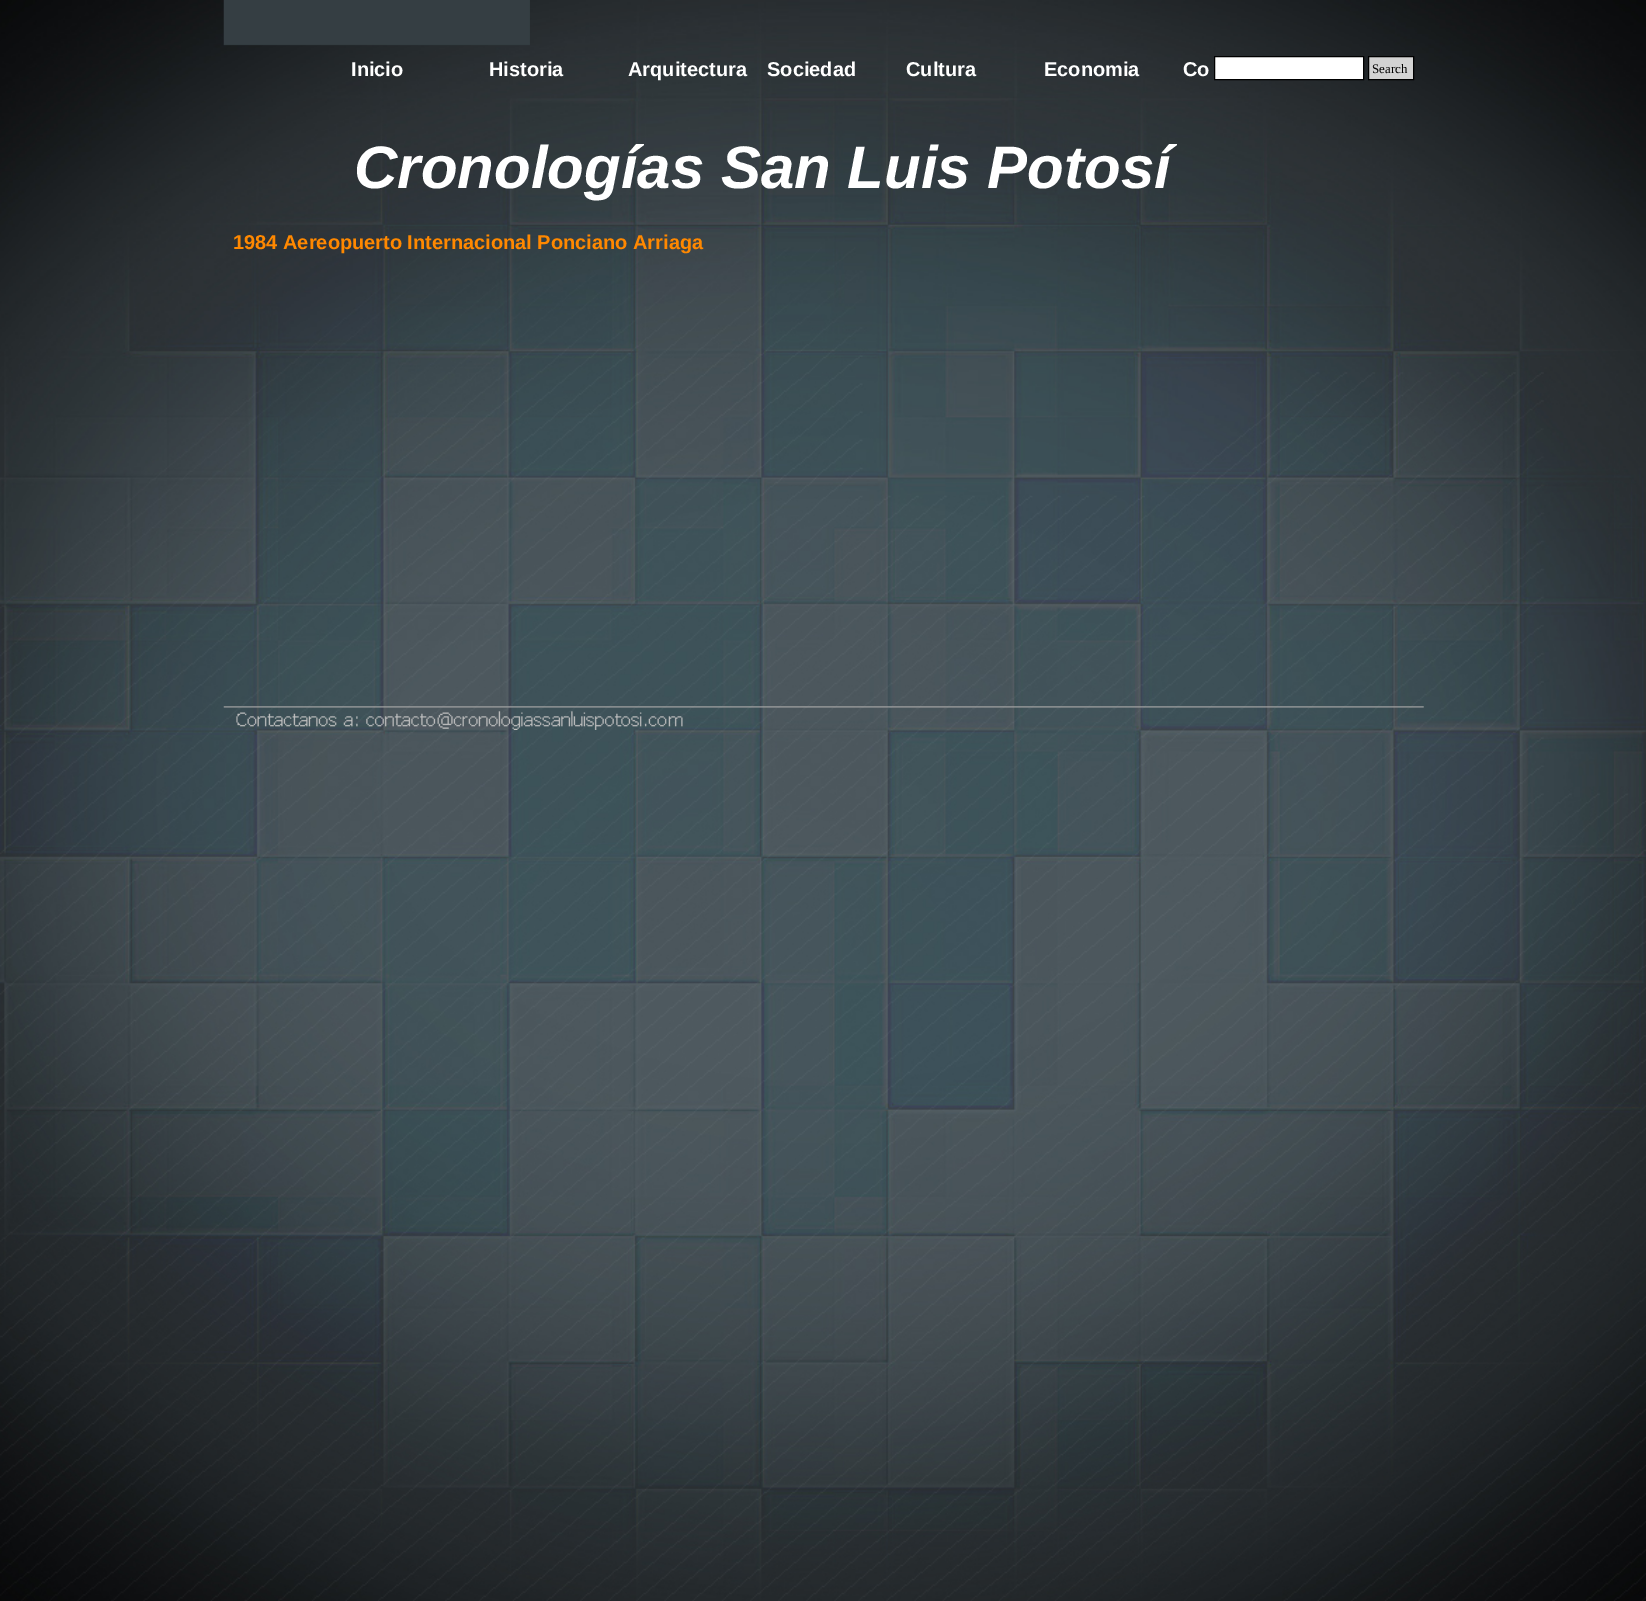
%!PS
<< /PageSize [1646 1601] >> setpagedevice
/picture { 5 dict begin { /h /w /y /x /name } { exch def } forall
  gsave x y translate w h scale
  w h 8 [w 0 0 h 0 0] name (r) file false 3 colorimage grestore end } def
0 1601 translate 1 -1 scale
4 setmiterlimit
1 setgray
0 0 1646 1601 rectfill
(img1.rgb) 0 0 1646 1601 picture
(img2.rgb) 223 0 307 46 picture
/LiberationSans-Bold [20 0 0 -20 0 0] selectfont
351 76 moveto (Inicio) show
489 76 moveto (Historia) show
628 76 moveto (Arquitectura) show
767 76 moveto (Sociedad) show
906 76 moveto (Cultura) show
1044 76 moveto (Economia) show
1183 76 moveto (Co) show
newpath 1214.5 56.5 moveto 1363.5 56.5 lineto 1363.5 79.5 lineto 1214.5 79.5 lineto closepath gsave fill grestore
0 setgray
stroke
0.827 setgray
newpath 1368.5 56.5 moveto 1413.5 56.5 lineto 1413.5 79.5 lineto 1368.5 79.5 lineto closepath gsave fill grestore
0 setgray
stroke
/LiberationSerif-Regular [13 0 0 -13 0 0] selectfont
1372 73 moveto (Search) show
/LiberationSans-BoldItalic [60 0 0 -60 0 0] selectfont
1 setgray
354 188 moveto (Cronologías San Luis Potosí) show
/LiberationSans-Bold [20 0 0 -20 0 0] selectfont
1 0.533 0 setrgbcolor
233 249 moveto (1984 Aereopuerto Internacional Ponciano Arriaga) show
(img3.rgb) 223 706 1201 2 picture
(img4.rgb) 236 711 447 19 picture
showpage
